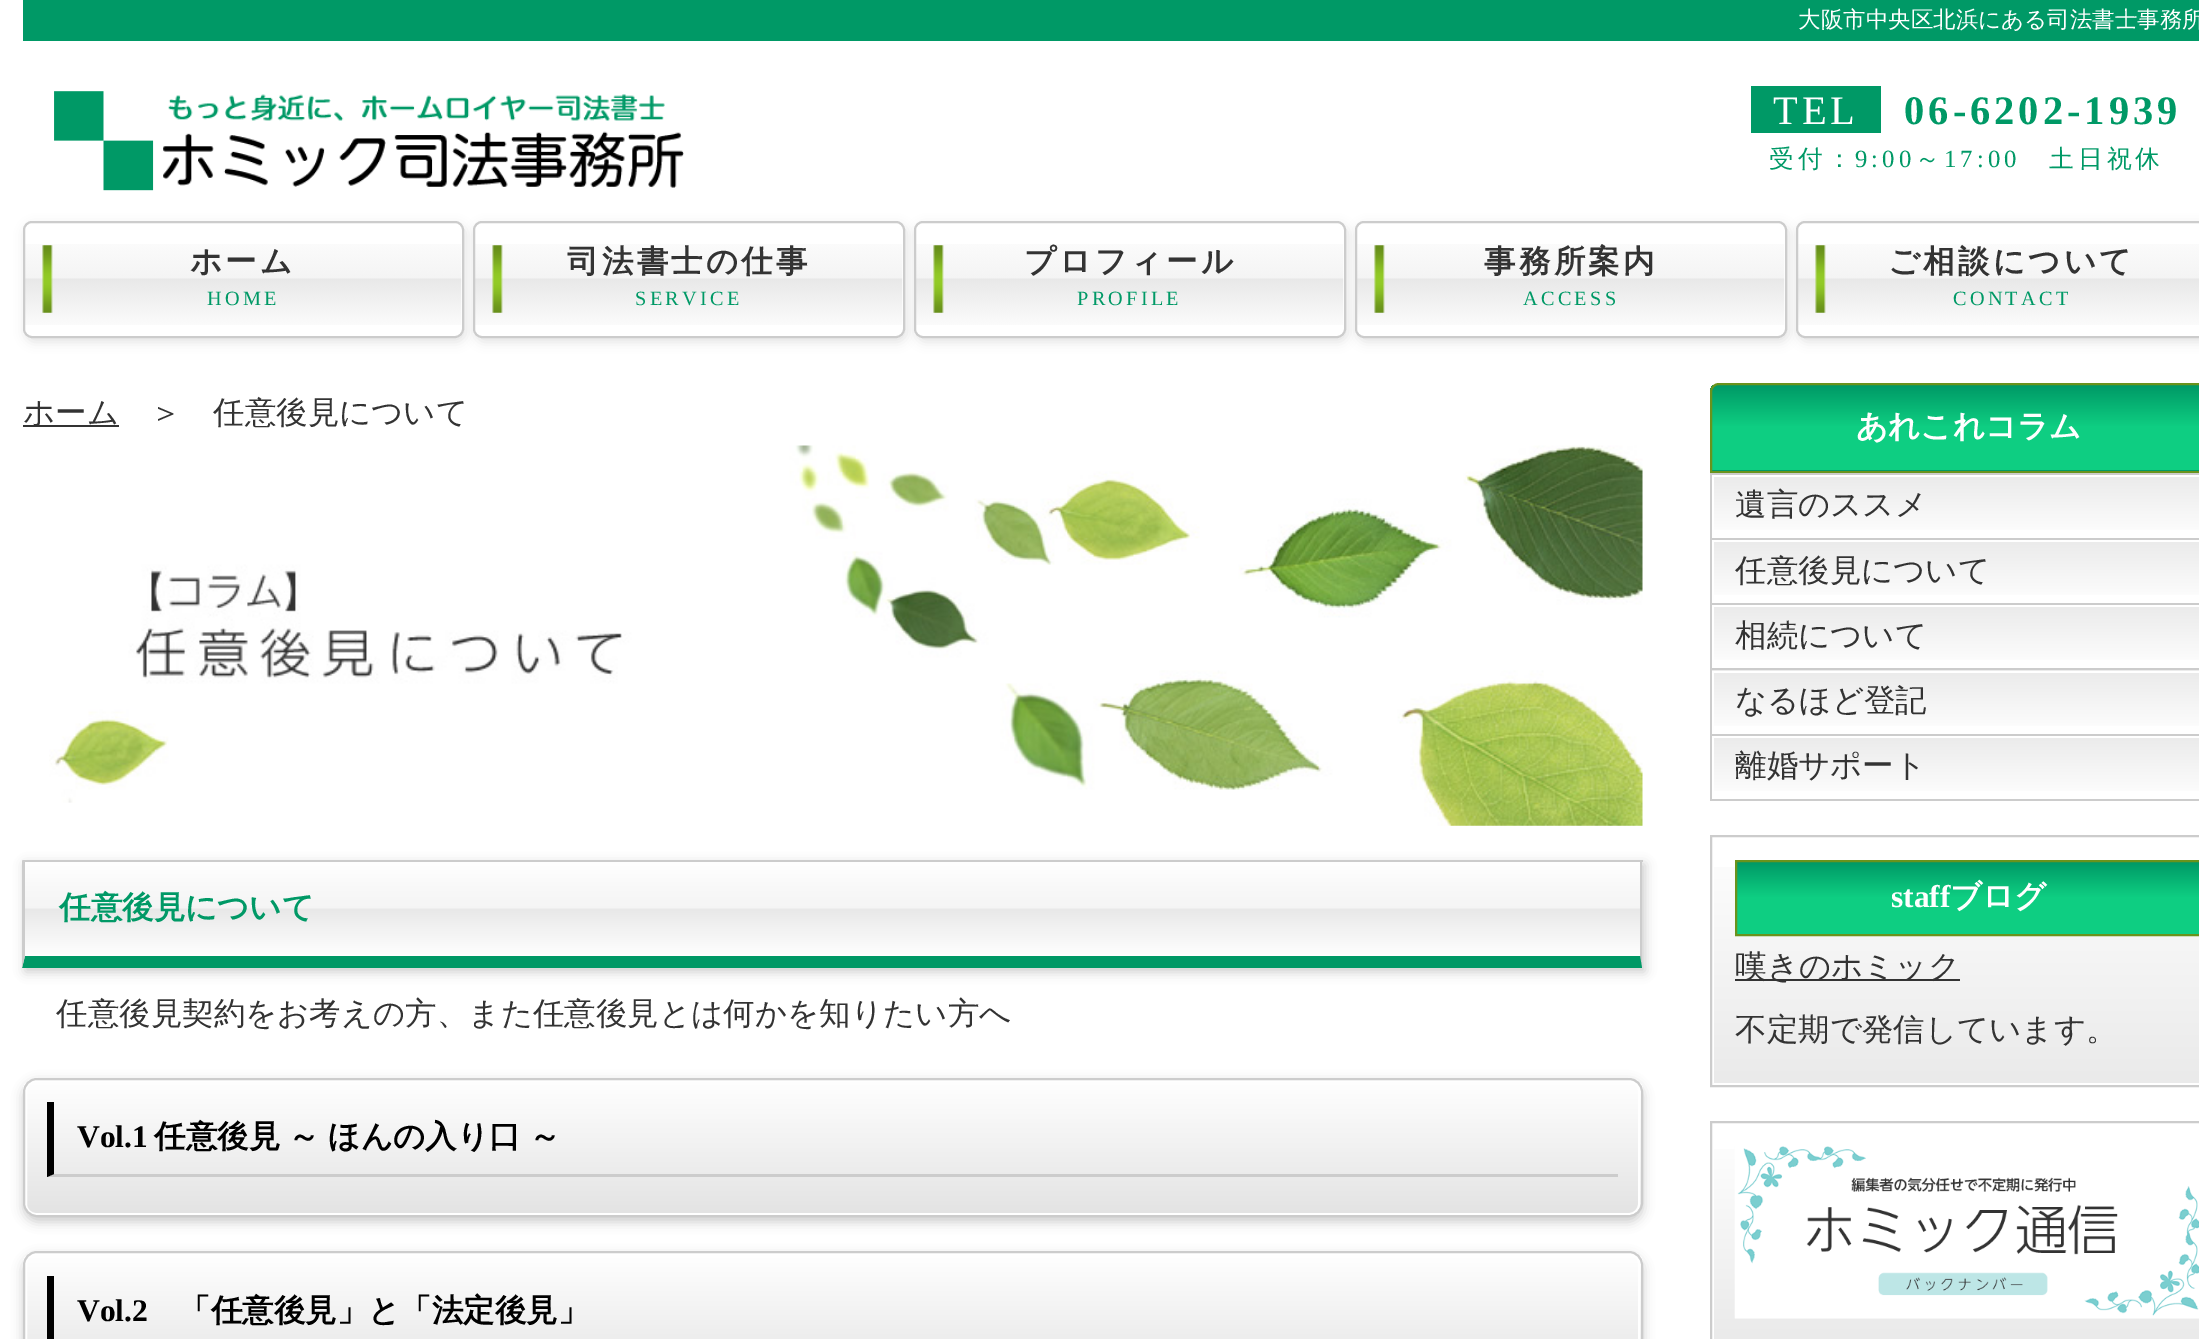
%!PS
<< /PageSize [2199 1339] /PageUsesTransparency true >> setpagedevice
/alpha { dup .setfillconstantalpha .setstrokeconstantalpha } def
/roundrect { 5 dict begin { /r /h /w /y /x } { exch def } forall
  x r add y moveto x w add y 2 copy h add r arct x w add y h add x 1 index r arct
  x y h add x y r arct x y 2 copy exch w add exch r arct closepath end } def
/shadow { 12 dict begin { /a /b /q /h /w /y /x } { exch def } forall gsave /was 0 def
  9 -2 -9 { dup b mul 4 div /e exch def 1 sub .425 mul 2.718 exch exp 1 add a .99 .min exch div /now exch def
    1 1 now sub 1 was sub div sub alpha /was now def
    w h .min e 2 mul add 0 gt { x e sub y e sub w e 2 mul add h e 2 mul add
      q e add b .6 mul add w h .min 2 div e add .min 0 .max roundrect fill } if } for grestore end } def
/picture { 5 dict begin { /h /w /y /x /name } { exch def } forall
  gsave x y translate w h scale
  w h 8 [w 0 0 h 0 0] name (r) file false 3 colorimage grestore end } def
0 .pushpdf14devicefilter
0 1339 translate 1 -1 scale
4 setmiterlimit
1 setgray
0 0 2199 1339 rectfill
0 0.6 0.4 setrgbcolor
23 0 2176 41 rectfill
/WenQuanYiZenHei-Medium [22.5 0 0 -22.5 0 0] selectfont
1 setgray
1798 27 moveto (大阪市中央区北浜にある司法書士事務所) show
(img1.rgb) 54 91 630 100 picture
0 0.6 0.4 setrgbcolor
1751 86 130 47 rectfill
/LiberationSerif-Regular [40.5 0 0 -40.5 0 0] selectfont
1 setgray
1773 124 moveto 4 0 (TEL) ashow
/LiberationSerif-Bold [40.5 0 0 -40.5 0 0] selectfont
0 0.6 0.4 setrgbcolor
1904 124 moveto 4 0 (06-6202-1939) ashow
/WenQuanYiZenHei-Medium [24.75 0 0 -24.75 0 0] selectfont
1769 167 moveto 4 0 (受付：) ashow
/LiberationSerif-Regular [24.75 0 0 -24.75 0 0] selectfont
1855 167 moveto 4 0 (9:00) ashow
/WenQuanYiZenHei-Medium [24.75 0 0 -24.75 0 0] selectfont
1915 167 moveto 4 0 (～) ashow
/LiberationSerif-Regular [24.75 0 0 -24.75 0 0] selectfont
1944 167 moveto 4 0 (17:00) ashow
/WenQuanYiZenHei-Medium [24.75 0 0 -24.75 0 0] selectfont
2049 167 moveto 4 0 (土日祝休) ashow
0.886 setgray
25 225 441 117 9 5.5 1 shadow
1 setgray
23 221 441 117 9 roundrect fill
(img2.rgb) 25 244 437 81 picture
0.8 setgray
2 setlinewidth
24 222 439 115 8 roundrect stroke
/WenQuanYiZenHei-Bold [31.5 0 0 -31.5 0 0] selectfont
0.2 setgray
190 272 moveto 3.25 0 (ホーム) ashow
/LiberationSerif-Regular [20.25 0 0 -20.25 0 0] selectfont
0 0.6 0.4 setrgbcolor
207 305 moveto 3.25 0 (HOME) ashow
0.886 setgray
475 225 432 117 9 5.5 1 shadow
1 setgray
473 221 432 117 9 roundrect fill
(img3.rgb) 475 244 428 81 picture
0.8 setgray
474 222 430 115 8 roundrect stroke
/WenQuanYiZenHei-Bold [31.5 0 0 -31.5 0 0] selectfont
0.2 setgray
567 272 moveto 3.25 0 (司法書士の仕事) ashow
/LiberationSerif-Regular [20.25 0 0 -20.25 0 0] selectfont
0 0.6 0.4 setrgbcolor
635 305 moveto 3.25 0 (SERVICE) ashow
0.886 setgray
916 225 432 117 9 5.5 1 shadow
1 setgray
914 221 432 117 9 roundrect fill
(img4.rgb) 916 244 428 81 picture
0.8 setgray
915 222 430 115 8 roundrect stroke
/WenQuanYiZenHei-Bold [31.5 0 0 -31.5 0 0] selectfont
0.2 setgray
1024 272 moveto 3.25 0 (プロフィール) ashow
/LiberationSerif-Regular [20.25 0 0 -20.25 0 0] selectfont
0 0.6 0.4 setrgbcolor
1077 305 moveto 3.25 0 (PROFILE) ashow
0.886 setgray
1357 225 432 117 9 5.5 1 shadow
1 setgray
1355 221 432 117 9 roundrect fill
(img5.rgb) 1357 244 428 81 picture
0.8 setgray
1356 222 430 115 8 roundrect stroke
/WenQuanYiZenHei-Bold [31.5 0 0 -31.5 0 0] selectfont
0.2 setgray
1484 272 moveto 3.25 0 (事務所案内) ashow
/LiberationSerif-Regular [20.25 0 0 -20.25 0 0] selectfont
0 0.6 0.4 setrgbcolor
1523 305 moveto 3.25 0 (ACCESS) ashow
0.886 setgray
1798 225 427 117 9 5.5 1 shadow
1 setgray
1796 221 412 117 9 roundrect fill
(img6.rgb) 1798 244 401 81 picture
0.8 setgray
1797 222 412 115 8 roundrect stroke
/WenQuanYiZenHei-Bold [31.5 0 0 -31.5 0 0] selectfont
0.2 setgray
1888 272 moveto 3.25 0 (ご相談について) ashow
/LiberationSerif-Regular [20.25 0 0 -20.25 0 0] selectfont
0 0.6 0.4 setrgbcolor
1953 305 moveto 3.25 0 (CONTACT) ashow
0.2 setgray
23 425 96 2 rectfill
/WenQuanYiZenHei-Medium [31.5 0 0 -31.5 0 0] selectfont
23 423 moveto (ホーム) show
150 423 moveto (＞　任意後見について) show
(img7.rgb) 49 445 1594 381 picture
0.8 setgray
25 864 1620 108 0 5.5 1 shadow
gsave newpath 25 862 moveto 1640 862 lineto 1640 956 lineto 25 956 lineto closepath clip newpath
<< /ShadingType 2 /ColorSpace /DeviceRGB /Coords [833 862 833 956] /Extend [true true] /Function << /FunctionType 3 /Domain [0 1] /Functions [<< /FunctionType 2 /Domain [0 1] /C0 [1 1 1] /C1 [0.957 0.957 0.957] /N 1 >> << /FunctionType 2 /Domain [0 1] /C0 [0.957 0.957 0.957] /C1 [0.91 0.91 0.91] /N 1 >> << /FunctionType 2 /Domain [0 1] /C0 [0.91 0.91 0.91] /C1 [1 1 1] /N 1 >>] /Bounds [0.49 0.5] /Encode [0 1 0 1 0 1] >> >> shfill grestore
23 860 1620 2 rectfill
newpath 1642 860 moveto 1642 968 lineto 1640 956 lineto 1640 862 lineto closepath fill
0 0.6 0.4 setrgbcolor
newpath 1642 968 moveto 22 968 lineto 25 956 lineto 1640 956 lineto closepath fill
0.8 setgray
newpath 22 968 moveto 22 860 lineto 25 862 lineto 25 956 lineto closepath fill
/WenQuanYiZenHei-Bold [31.5 0 0 -31.5 0 0] selectfont
0 0.6 0.4 setrgbcolor
59 918 moveto (任意後見について) show
/WenQuanYiZenHei-Medium [31.5 0 0 -31.5 0 0] selectfont
0.2 setgray
56 1024 moveto (任意後見契約をお考えの方、また任意後見とは何かを知りたい方へ) show
0.8 setgray
23 1082 1620 140 14 5.5 1 shadow
gsave
23 1078 1620 139 14 roundrect clip newpath
gsave newpath 23 1080 moveto 1643 1080 lineto 1643 1215 lineto 23 1215 lineto closepath clip newpath
<< /ShadingType 2 /ColorSpace /DeviceRGB /Coords [833 1080 833 1215] /Extend [true true] /Function << /FunctionType 2 /Domain [0 1] /C0 [1 1 1] /C1 [0.89 0.89 0.89] /N 1 >> >> shfill grestore
grestore
1 setgray
26 1081 1613 133 10 roundrect stroke
0.8 setgray
24 1079 1618 137 13 roundrect stroke
newpath 1618 1177 moveto 47 1177 lineto 54 1174 lineto 1618 1174 lineto closepath fill
0 setgray
newpath 47 1177 moveto 47 1102 lineto 54 1102 lineto 54 1174 lineto closepath fill
/LiberationSerif-Bold [31.5 0 0 -31.5 0 0] selectfont
77 1147 moveto (Vol.1) show
/WenQuanYiZenHei-Bold [31.5 0 0 -31.5 0 0] selectfont
154 1147 moveto -1 0 32 (任意後見 ～ ほんの入り口 ～) widthshow
0.8 setgray
23 1256 1620 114 14 5.5 1 shadow
gsave
23 1251 1620 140 14 roundrect clip newpath
gsave newpath 23 1253 moveto 1643 1253 lineto 1643 1339 lineto 23 1339 lineto closepath clip newpath
<< /ShadingType 2 /ColorSpace /DeviceRGB /Coords [833 1253 833 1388] /Extend [true true] /Function << /FunctionType 2 /Domain [0 1] /C0 [1 1 1] /C1 [0.89 0.89 0.89] /N 1 >> >> shfill grestore
grestore
1 setgray
26 1254 1613 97 10 roundrect stroke
0.8 setgray
24 1252 1618 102 13 roundrect stroke
0 setgray
newpath 47 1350 moveto 47 1276 lineto 54 1276 lineto 54 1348 lineto closepath fill
/LiberationSerif-Bold [31.5 0 0 -31.5 0 0] selectfont
77 1321 moveto (Vol.2) show
/WenQuanYiZenHei-Bold [31.5 0 0 -31.5 0 0] selectfont
179 1321 moveto (「任意後見」と「法定後見」) show
gsave
newpath 1719 383 moveto 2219 383 lineto 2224 383 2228 387 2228 392 curveto 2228 473 lineto 1710 473 lineto 1710 392 lineto 1710 387 1714 383 1719 383 curveto closepath clip newpath
gsave newpath 1710 385 moveto 2199 385 lineto 2199 470 lineto 1710 470 lineto closepath clip newpath
<< /ShadingType 2 /ColorSpace /DeviceRGB /Coords [1969 385 1969 470] /Extend [true true] /Function << /FunctionType 3 /Domain [0 1] /Functions [<< /FunctionType 2 /Domain [0 1] /C0 [0 0.6 0.4] /C1 [0.055 0.808 0.51] /N 1 >> << /FunctionType 2 /Domain [0 1] /C0 [0.055 0.808 0.51] /C1 [0.055 0.808 0.51] /N 1 >> << /FunctionType 2 /Domain [0 1] /C0 [0.055 0.808 0.51] /C1 [0.055 0.808 0.51] /N 1 >>] /Bounds [0.49 0.5] /Encode [0 1 0 1 0 1] >> >> shfill grestore
grestore
gsave newpath 1710 470 moveto 2199 470 lineto 2199 471 lineto 1710 471 lineto closepath clip newpath
<< /ShadingType 2 /ColorSpace /DeviceRGB /Coords [1969 470 1969 556] /Extend [true true] /Function << /FunctionType 3 /Domain [0 1] /Functions [<< /FunctionType 2 /Domain [0 1] /C0 [0 0.6 0.4] /C1 [0.055 0.808 0.51] /N 1 >> << /FunctionType 2 /Domain [0 1] /C0 [0.055 0.808 0.51] /C1 [0.055 0.808 0.51] /N 1 >> << /FunctionType 2 /Domain [0 1] /C0 [0.055 0.808 0.51] /C1 [0.055 0.808 0.51] /N 1 >>] /Bounds [0.49 0.5] /Encode [0 1 0 1 0 1] >> >> shfill grestore
0.416 0.576 0.11 setrgbcolor
newpath 1719 384 moveto 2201 384 lineto 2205.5 384 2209 387.5 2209 392 curveto 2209 472 lineto 1711 472 lineto 1711 392 lineto 1711 387.5 1714.5 384 1719 384 curveto closepath stroke
1 setgray
1856 437 moveto (あれこれコラム) show
0.8 setgray
1710 473 489 2 rectfill
1710 473 2 328 rectfill
gsave newpath 1714 477 moveto 2199 477 lineto 2199 530 lineto 1714 530 lineto closepath clip newpath
<< /ShadingType 2 /ColorSpace /DeviceRGB /Coords [1969 475 1969 538] /Extend [true true] /Function << /FunctionType 2 /Domain [0 1] /C0 [0.918 0.918 0.918] /C1 [1 1 1] /N 1 >> >> shfill grestore
1712 538 487 2 rectfill
/WenQuanYiZenHei-Medium [31.5 0 0 -31.5 0 0] selectfont
0.2 setgray
1735 515 moveto (遺言のススメ) show
gsave newpath 1714 542 moveto 2199 542 lineto 2199 595 lineto 1714 595 lineto closepath clip newpath
<< /ShadingType 2 /ColorSpace /DeviceRGB /Coords [1969 540 1969 603] /Extend [true true] /Function << /FunctionType 2 /Domain [0 1] /C0 [0.918 0.918 0.918] /C1 [1 1 1] /N 1 >> >> shfill grestore
0.8 setgray
1712 603 487 2 rectfill
0.2 setgray
1735 581 moveto (任意後見について) show
gsave newpath 1714 607 moveto 2199 607 lineto 2199 660 lineto 1714 660 lineto closepath clip newpath
<< /ShadingType 2 /ColorSpace /DeviceRGB /Coords [1969 605 1969 668] /Extend [true true] /Function << /FunctionType 2 /Domain [0 1] /C0 [0.918 0.918 0.918] /C1 [1 1 1] /N 1 >> >> shfill grestore
gsave newpath 1712 670 moveto 2199 670 lineto 2199 671 lineto 1712 671 lineto closepath clip newpath
<< /ShadingType 2 /ColorSpace /DeviceRGB /Coords [1969 668 1969 731] /Extend [true true] /Function << /FunctionType 2 /Domain [0 1] /C0 [0.918 0.918 0.918] /C1 [1 1 1] /N 1 >> >> shfill grestore
0.8 setgray
1712 668 487 2 rectfill
0.2 setgray
1735 646 moveto (相続について) show
gsave newpath 1714 673 moveto 2199 673 lineto 2199 726 lineto 1714 726 lineto closepath clip newpath
<< /ShadingType 2 /ColorSpace /DeviceRGB /Coords [1969 671 1969 734] /Extend [true true] /Function << /FunctionType 2 /Domain [0 1] /C0 [0.918 0.918 0.918] /C1 [1 1 1] /N 1 >> >> shfill grestore
0.8 setgray
1712 734 487 2 rectfill
0.2 setgray
1735 711 moveto (なるほど登記) show
gsave newpath 1714 738 moveto 2199 738 lineto 2199 791 lineto 1714 791 lineto closepath clip newpath
<< /ShadingType 2 /ColorSpace /DeviceRGB /Coords [1969 736 1969 799] /Extend [true true] /Function << /FunctionType 2 /Domain [0 1] /C0 [0.918 0.918 0.918] /C1 [1 1 1] /N 1 >> >> shfill grestore
0.8 setgray
1712 799 487 2 rectfill
0.2 setgray
1735 776 moveto (離婚サポート) show
gsave newpath 1714 867 moveto 2199 867 lineto 2199 1083 lineto 1714 1083 lineto closepath clip newpath
<< /ShadingType 2 /ColorSpace /DeviceRGB /Coords [1969 837 1969 1085] /Extend [true true] /Function << /FunctionType 2 /Domain [0 1] /C0 [1 1 1] /C1 [0.918 0.918 0.918] /N 1 >> >> shfill grestore
0.8 setgray
1711 836 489 250 rectstroke
gsave newpath 1737 862 moveto 2199 862 lineto 2199 934 lineto 1737 934 lineto closepath clip newpath
<< /ShadingType 2 /ColorSpace /DeviceRGB /Coords [1969 862 1969 934] /Extend [true true] /Function << /FunctionType 3 /Domain [0 1] /Functions [<< /FunctionType 2 /Domain [0 1] /C0 [0 0.6 0.4] /C1 [0.055 0.808 0.51] /N 1 >> << /FunctionType 2 /Domain [0 1] /C0 [0.055 0.808 0.51] /C1 [0.055 0.808 0.51] /N 1 >> << /FunctionType 2 /Domain [0 1] /C0 [0.055 0.808 0.51] /C1 [0.055 0.808 0.51] /N 1 >>] /Bounds [0.49 0.5] /Encode [0 1 0 1 0 1] >> >> shfill grestore
0.416 0.576 0.11 setrgbcolor
1736 861 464 74 rectstroke
/LiberationSerif-Bold [31.5 0 0 -31.5 0 0] selectfont
1 setgray
1891 907 moveto (staff) show
/WenQuanYiZenHei-Bold [31.5 0 0 -31.5 0 0] selectfont
1950 907 moveto (ブログ) show
0.2 setgray
1735 979 225 2 rectfill
/WenQuanYiZenHei-Medium [31.5 0 0 -31.5 0 0] selectfont
1735 977 moveto (嘆きのホミック) show
1735 1040 moveto (不定期で発信しています。) show
gsave newpath 1714 1149 moveto 2199 1149 lineto 2199 1339 lineto 1714 1339 lineto closepath clip newpath
<< /ShadingType 2 /ColorSpace /DeviceRGB /Coords [1969 1123 1969 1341] /Extend [true true] /Function << /FunctionType 2 /Domain [0 1] /C0 [1 1 1] /C1 [0.918 0.918 0.918] /N 1 >> >> shfill grestore
0.8 setgray
1711 1122 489 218 rectstroke
(img8.rgb) 1734 1146 465 173 picture
.poppdf14devicefilter showpage
